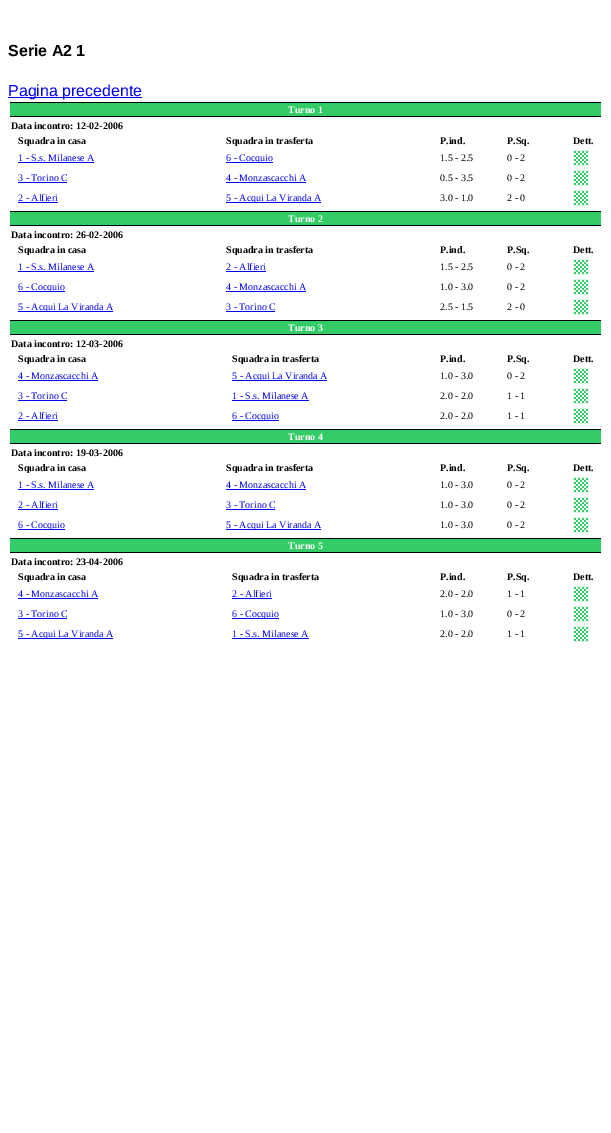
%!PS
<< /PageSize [611 1133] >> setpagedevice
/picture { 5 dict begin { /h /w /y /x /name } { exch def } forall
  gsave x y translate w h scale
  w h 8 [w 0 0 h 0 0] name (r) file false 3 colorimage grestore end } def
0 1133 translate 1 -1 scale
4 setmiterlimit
1 setgray
0 0 611 1133 rectfill
/LiberationSans-Bold [16 0 0 -16 0 0] selectfont
0 setgray
8 56 moveto (Serie A2 1) show
0 0 0.933 setrgbcolor
8 97 134 1 rectfill
/LiberationSans-Regular [16 0 0 -16 0 0] selectfont
8 96 moveto (Pagina precedente) show
0.2 0.8 0.4 setrgbcolor
10 103 591 13 rectfill
0 setgray
10 102 591 1 rectfill
10 116 591 1 rectfill
/LiberationSerif-Bold [10 0 0 -10 0 0] selectfont
1 setgray
288 113 moveto (Turno 1) show
0 setgray
11 129 moveto (Data incontro: 12-02-2006) show
18 144 moveto (Squadra in casa) show
226 144 moveto (Squadra in trasferta) show
440 144 moveto (P.ind.) show
507 144 moveto (P.Sq.) show
573 144 moveto (Dett.) show
/LiberationSerif-Regular [10 0 0 -10 0 0] selectfont
0 0 0.933 setrgbcolor
18 161 moveto (1 - S.s. Milanese A) show
18 162 76 1 rectfill
226 162 47 1 rectfill
226 161 moveto (6 - Cocquio) show
0 setgray
440 161 moveto (1.5 - 2.5) show
507 161 moveto (0 - 2) show
(img1.rgb) 573 150 16 16 picture
0 0 0.933 setrgbcolor
18 181 moveto (3 - Torino C) show
18 182 49 1 rectfill
226 181 moveto (4 - Monzascacchi A) show
226 182 80 1 rectfill
0 setgray
440 181 moveto (0.5 - 3.5) show
507 181 moveto (0 - 2) show
(img1.rgb) 573 170 16 16 picture
0 0 0.933 setrgbcolor
18 201 moveto (2 - Alfieri) show
18 202 40 1 rectfill
226 202 95 1 rectfill
226 201 moveto (5 - Acqui La Viranda A) show
0 setgray
440 201 moveto (3.0 - 1.0) show
507 201 moveto (2 - 0) show
(img1.rgb) 573 190 16 16 picture
0.2 0.8 0.4 setrgbcolor
10 212 591 13 rectfill
0 setgray
10 211 591 1 rectfill
10 225 591 1 rectfill
/LiberationSerif-Bold [10 0 0 -10 0 0] selectfont
1 setgray
288 222 moveto (Turno 2) show
0 setgray
11 238 moveto (Data incontro: 26-02-2006) show
18 253 moveto (Squadra in casa) show
226 253 moveto (Squadra in trasferta) show
440 253 moveto (P.ind.) show
507 253 moveto (P.Sq.) show
573 253 moveto (Dett.) show
/LiberationSerif-Regular [10 0 0 -10 0 0] selectfont
0 0 0.933 setrgbcolor
18 270 moveto (1 - S.s. Milanese A) show
18 271 76 1 rectfill
226 270 moveto (2 - Alfieri) show
226 271 40 1 rectfill
0 setgray
440 270 moveto (1.5 - 2.5) show
507 270 moveto (0 - 2) show
(img1.rgb) 573 259 16 16 picture
0 0 0.933 setrgbcolor
18 291 47 1 rectfill
18 290 moveto (6 - Cocquio) show
226 290 moveto (4 - Monzascacchi A) show
226 291 80 1 rectfill
0 setgray
440 290 moveto (1.0 - 3.0) show
507 290 moveto (0 - 2) show
(img1.rgb) 573 279 16 16 picture
0 0 0.933 setrgbcolor
18 311 95 1 rectfill
18 310 moveto (5 - Acqui La Viranda A) show
226 310 moveto (3 - Torino C) show
226 311 49 1 rectfill
0 setgray
440 310 moveto (2.5 - 1.5) show
507 310 moveto (2 - 0) show
(img1.rgb) 573 299 16 16 picture
0.2 0.8 0.4 setrgbcolor
10 321 591 13 rectfill
0 setgray
10 320 591 1 rectfill
10 334 591 1 rectfill
/LiberationSerif-Bold [10 0 0 -10 0 0] selectfont
1 setgray
288 331 moveto (Turno 3) show
0 setgray
11 347 moveto (Data incontro: 12-03-2006) show
18 362 moveto (Squadra in casa) show
232 362 moveto (Squadra in trasferta) show
440 362 moveto (P.ind.) show
507 362 moveto (P.Sq.) show
573 362 moveto (Dett.) show
/LiberationSerif-Regular [10 0 0 -10 0 0] selectfont
0 0 0.933 setrgbcolor
18 379 moveto (4 - Monzascacchi A) show
18 380 80 1 rectfill
232 380 95 1 rectfill
232 379 moveto (5 - Acqui La Viranda A) show
0 setgray
440 379 moveto (1.0 - 3.0) show
507 379 moveto (0 - 2) show
(img1.rgb) 573 368 16 16 picture
0 0 0.933 setrgbcolor
18 399 moveto (3 - Torino C) show
18 400 49 1 rectfill
232 399 moveto (1 - S.s. Milanese A) show
232 400 77 1 rectfill
0 setgray
440 399 moveto (2.0 - 2.0) show
507 399 moveto (1 - 1) show
(img1.rgb) 573 388 16 16 picture
0 0 0.933 setrgbcolor
18 419 moveto (2 - Alfieri) show
18 420 40 1 rectfill
232 420 47 1 rectfill
232 419 moveto (6 - Cocquio) show
0 setgray
440 419 moveto (2.0 - 2.0) show
507 419 moveto (1 - 1) show
(img1.rgb) 573 408 16 16 picture
0.2 0.8 0.4 setrgbcolor
10 430 591 13 rectfill
0 setgray
10 429 591 1 rectfill
10 443 591 1 rectfill
/LiberationSerif-Bold [10 0 0 -10 0 0] selectfont
1 setgray
288 440 moveto (Turno 4) show
0 setgray
11 456 moveto (Data incontro: 19-03-2006) show
18 471 moveto (Squadra in casa) show
226 471 moveto (Squadra in trasferta) show
440 471 moveto (P.ind.) show
507 471 moveto (P.Sq.) show
573 471 moveto (Dett.) show
/LiberationSerif-Regular [10 0 0 -10 0 0] selectfont
0 0 0.933 setrgbcolor
18 488 moveto (1 - S.s. Milanese A) show
18 489 76 1 rectfill
226 488 moveto (4 - Monzascacchi A) show
226 489 80 1 rectfill
0 setgray
440 488 moveto (1.0 - 3.0) show
507 488 moveto (0 - 2) show
(img1.rgb) 573 477 16 16 picture
0 0 0.933 setrgbcolor
18 508 moveto (2 - Alfieri) show
18 509 40 1 rectfill
226 508 moveto (3 - Torino C) show
226 509 49 1 rectfill
0 setgray
440 508 moveto (1.0 - 3.0) show
507 508 moveto (0 - 2) show
(img1.rgb) 573 497 16 16 picture
0 0 0.933 setrgbcolor
18 529 47 1 rectfill
18 528 moveto (6 - Cocquio) show
226 529 95 1 rectfill
226 528 moveto (5 - Acqui La Viranda A) show
0 setgray
440 528 moveto (1.0 - 3.0) show
507 528 moveto (0 - 2) show
(img1.rgb) 573 517 16 16 picture
0.2 0.8 0.4 setrgbcolor
10 539 591 13 rectfill
0 setgray
10 538 591 1 rectfill
10 552 591 1 rectfill
/LiberationSerif-Bold [10 0 0 -10 0 0] selectfont
1 setgray
288 549 moveto (Turno 5) show
0 setgray
11 565 moveto (Data incontro: 23-04-2006) show
18 580 moveto (Squadra in casa) show
232 580 moveto (Squadra in trasferta) show
440 580 moveto (P.ind.) show
507 580 moveto (P.Sq.) show
573 580 moveto (Dett.) show
/LiberationSerif-Regular [10 0 0 -10 0 0] selectfont
0 0 0.933 setrgbcolor
18 597 moveto (4 - Monzascacchi A) show
18 598 80 1 rectfill
232 597 moveto (2 - Alfieri) show
232 598 40 1 rectfill
0 setgray
440 597 moveto (2.0 - 2.0) show
507 597 moveto (1 - 1) show
(img1.rgb) 573 586 16 16 picture
0 0 0.933 setrgbcolor
18 617 moveto (3 - Torino C) show
18 618 49 1 rectfill
232 618 47 1 rectfill
232 617 moveto (6 - Cocquio) show
0 setgray
440 617 moveto (1.0 - 3.0) show
507 617 moveto (0 - 2) show
(img1.rgb) 573 606 16 16 picture
0 0 0.933 setrgbcolor
18 638 95 1 rectfill
18 637 moveto (5 - Acqui La Viranda A) show
232 637 moveto (1 - S.s. Milanese A) show
232 638 77 1 rectfill
0 setgray
440 637 moveto (2.0 - 2.0) show
507 637 moveto (1 - 1) show
(img1.rgb) 573 626 16 16 picture
showpage
